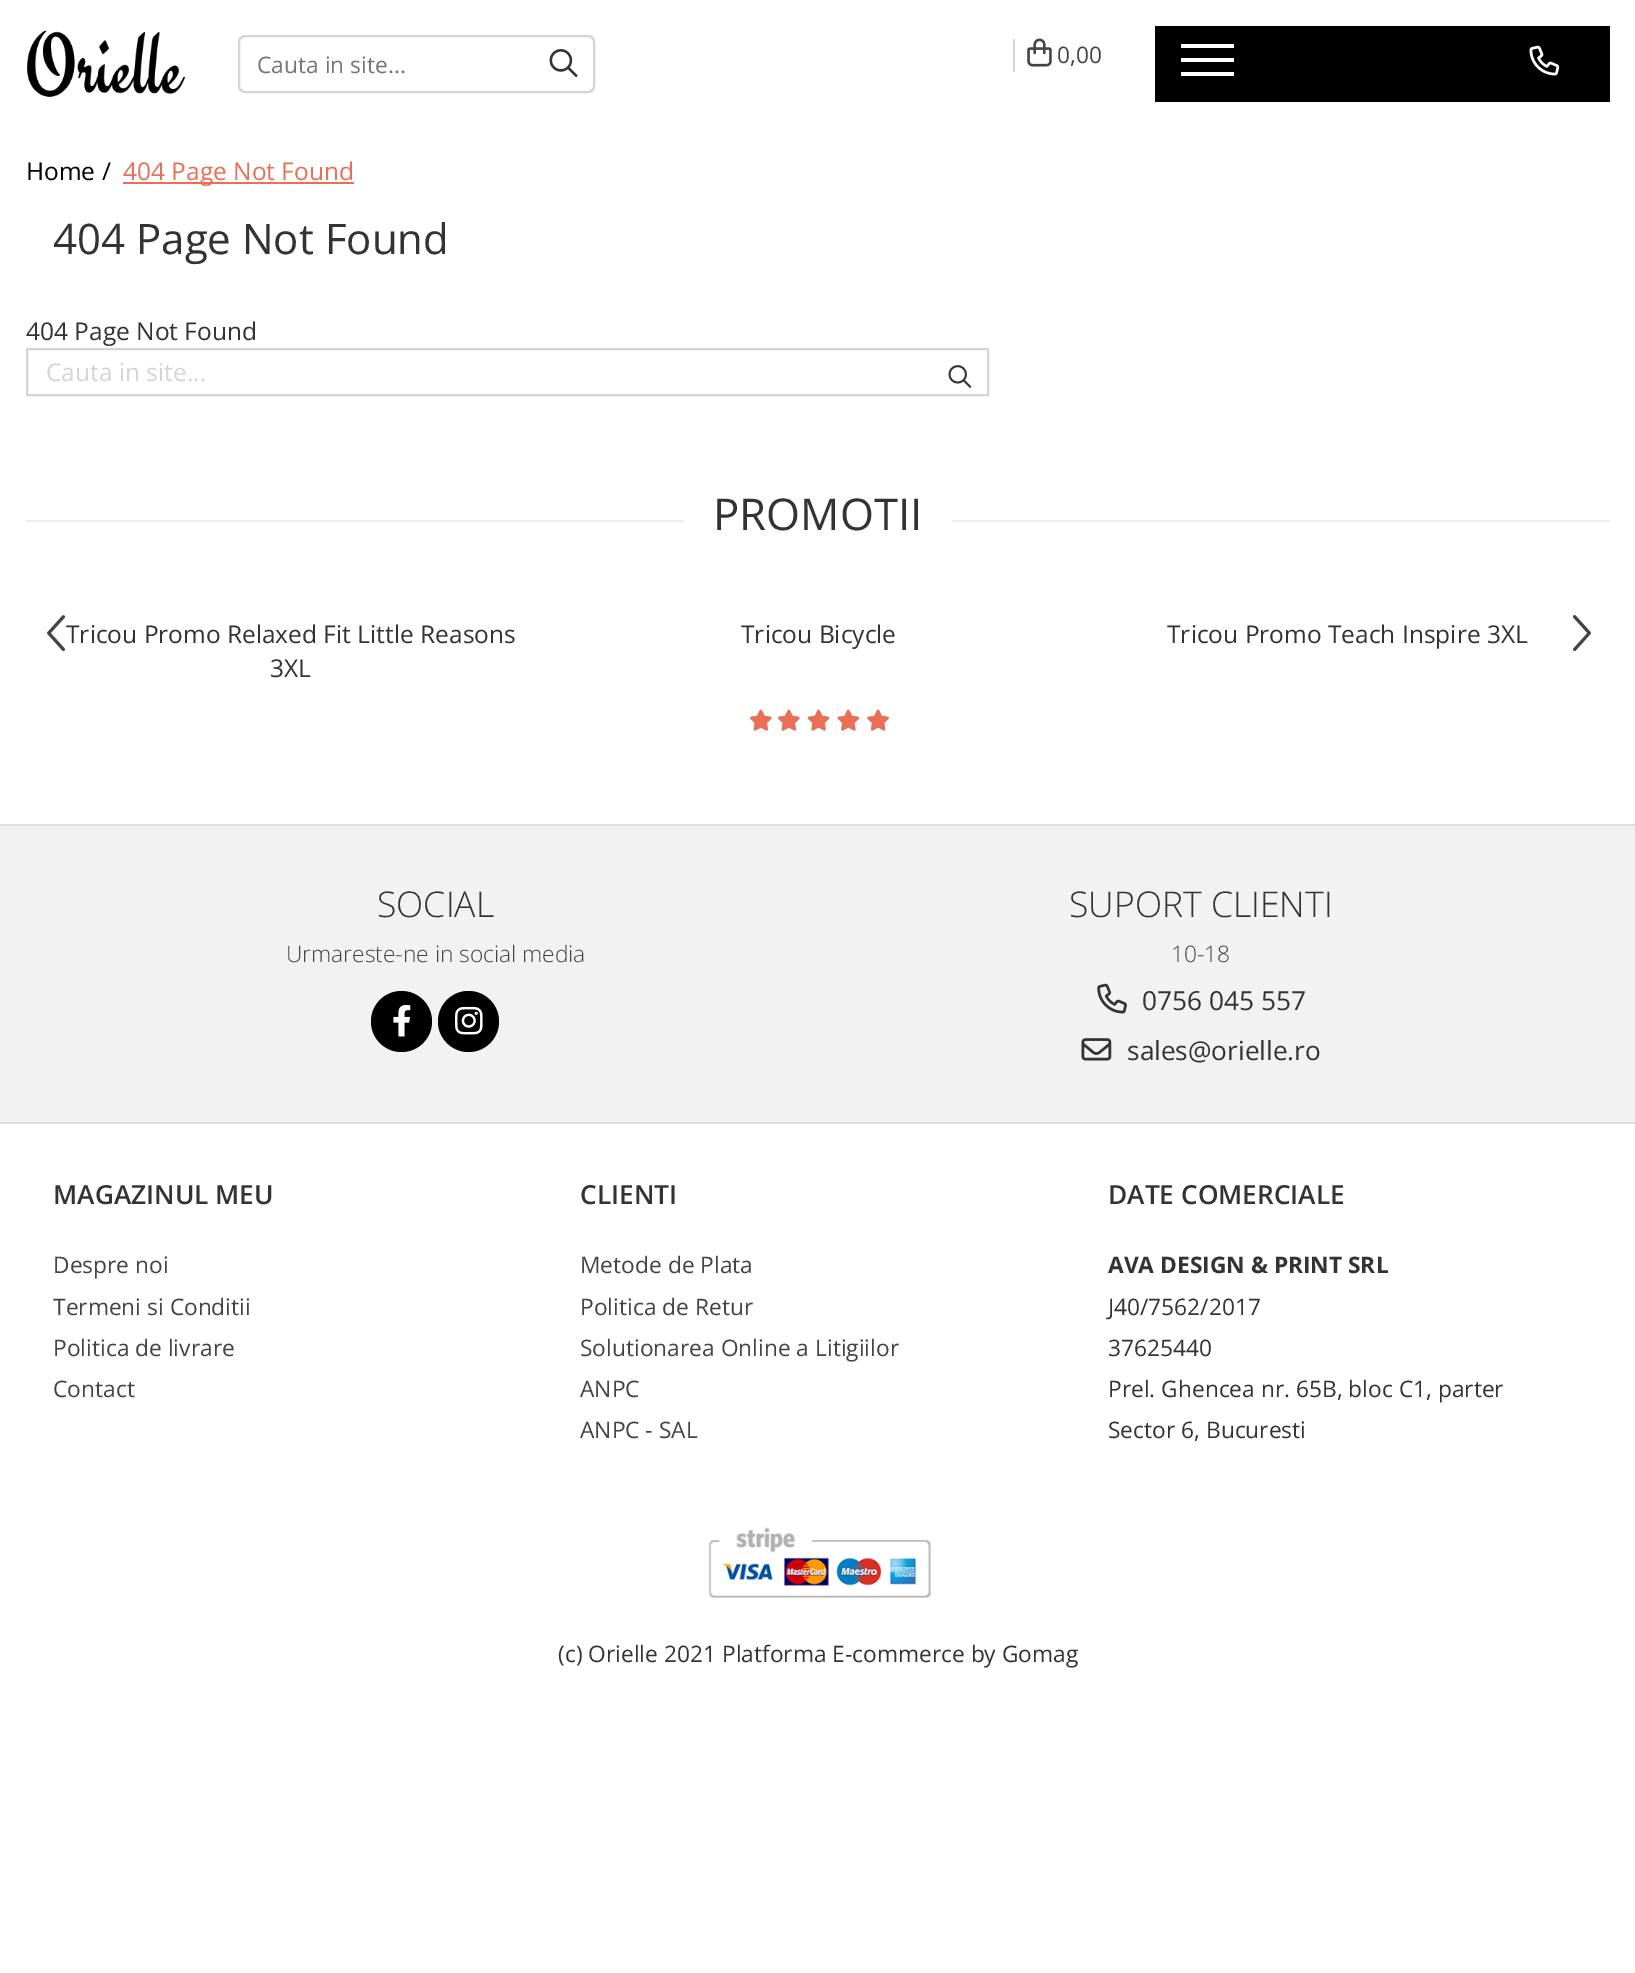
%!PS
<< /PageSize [1635 1973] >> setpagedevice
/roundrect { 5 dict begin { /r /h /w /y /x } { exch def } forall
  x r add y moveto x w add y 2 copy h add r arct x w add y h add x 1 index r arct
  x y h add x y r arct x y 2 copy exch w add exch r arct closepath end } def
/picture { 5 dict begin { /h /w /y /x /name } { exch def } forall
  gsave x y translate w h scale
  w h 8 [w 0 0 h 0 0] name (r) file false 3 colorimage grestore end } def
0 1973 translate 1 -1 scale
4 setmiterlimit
1 setgray
0 0 1635 1973 rectfill
(img1.rgb) 27 30 158 67 picture
0.835 setgray
2 setlinewidth
239 36 355 56 6 roundrect stroke
/OpenSans-Regular [22.75 0 0 -22.75 0 0] selectfont
0.459 setgray
257 73 moveto (Cauta in site...) show
(img2.rgb) 549 49 29 28 picture
0.835 setgray
1013 39 2 33 rectfill
(img3.rgb) 1027 38 25 29 picture
0.267 setgray
1057 63 moveto (0,00) show
0 setgray
1155 26 455 76 rectfill
1 setgray
1181 58 53 4 rectfill
1181 44 53 4 rectfill
1181 72 53 4 rectfill
(img4.rgb) 1529 45 31 31 picture
/OpenSans-Regular [24.5 0 0 -24.5 0 0] selectfont
0 setgray
26 180 moveto (Home /) show
0.914 0.435 0.337 setrgbcolor
123 182 231 2 rectfill
123 180 moveto (404 Page Not Found) show
/OpenSans-Regular [42 0 0 -42 0 0] selectfont
0.2 setgray
53 254 moveto (404 Page Not Found) show
/OpenSans-Regular [24.5 0 0 -24.5 0 0] selectfont
26 340 moveto (404 Page Not Found) show
0.835 setgray
27 349 961 46 rectstroke
46 381 moveto (Cauta in site...) show
(img5.rgb) 948 365 24 23 picture
0.933 setgray
26 520 1584 2 rectfill
1 setgray
684 520 268 2 rectfill
/OpenSans-Regular [43.75 0 0 -43.75 0 0] selectfont
0.2 setgray
713 530 moveto (PROMOTII) show
/OpenSans-Regular [24.5 0 0 -24.5 0 0] selectfont
66 643 moveto (Tricou Promo Relaxed Fit Little Reasons) show
(img6.rgb) 47 615 19 37 picture
(img7.rgb) 1572 615 19 37 picture
270 677 moveto (3XL) show
741 643 moveto (Tricou Bicycle) show
(img8.rgb) 750 709 22 22 picture
(img9.rgb) 750 709 22 22 picture
(img8.rgb) 778 709 22 22 picture
(img9.rgb) 778 709 22 22 picture
(img13.rgb) 807 709 23 22 picture
(img10.rgb) 807 709 23 22 picture
(img14.rgb) 837 709 22 22 picture
(img11.rgb) 837 709 23 22 picture
(img15.rgb) 867 709 22 22 picture
(img12.rgb) 867 709 22 22 picture
1167 643 moveto (Tricou Promo Teach Inspire 3XL) show
0.949 setgray
0 826 1635 296 rectfill
0.875 setgray
0 824 1635 2 rectfill
0 1122 1635 2 rectfill
/OpenSans-Light [35.5 0 0 -35.5 0 0] selectfont
0.2 setgray
377 917 moveto (SOCIAL) show
/OpenSans-Light [22.75 0 0 -22.75 0 0] selectfont
0.267 setgray
286 962 moveto (Urmareste-ne in social media) show
0 setgray
newpath 401.5 1021.5 30.5 0 360 arc closepath fill
(img16.rgb) 393 1004 18 33 picture
newpath 468.5 1021.5 30.5 0 360 arc closepath fill
(img17.rgb) 455 1006 28 29 picture
/OpenSans-Light [35.5 0 0 -35.5 0 0] selectfont
0.2 setgray
1069 917 moveto (SUPORT CLIENTI) show
/OpenSans-Light [22.75 0 0 -22.75 0 0] selectfont
0.267 setgray
1171 962 moveto (10-18) show
(img18.rgb) 1097 983 30 31 picture
/OpenSans-Regular [26.25 0 0 -26.25 0 0] selectfont
0.2 setgray
1142 1010 moveto (0756 045 557) show
(img19.rgb) 1081 1038 31 23 picture
1127 1060 moveto (sales@orielle.ro) show
/OpenSans-SemiBold [26.25 0 0 -26.25 0 0] selectfont
53 1204 moveto (MAGAZINUL MEU) show
/OpenSans-Regular [22.75 0 0 -22.75 0 0] selectfont
0.267 setgray
53 1273 moveto (Despre noi) show
53 1315 moveto (Termeni si Conditii) show
53 1356 moveto (Politica de livrare) show
53 1397 moveto (Contact) show
/OpenSans-SemiBold [26.25 0 0 -26.25 0 0] selectfont
0.2 setgray
580 1204 moveto (CLIENTI) show
/OpenSans-Regular [22.75 0 0 -22.75 0 0] selectfont
0.267 setgray
580 1273 moveto (Metode de Plata) show
580 1315 moveto (Politica de Retur) show
580 1356 moveto (Solutionarea Online a Litigiilor) show
580 1397 moveto (ANPC) show
580 1438 moveto (ANPC - SAL) show
/OpenSans-SemiBold [26.25 0 0 -26.25 0 0] selectfont
0.2 setgray
1108 1204 moveto (DATE COMERCIALE) show
/OpenSans-Bold [22.75 0 0 -22.75 0 0] selectfont
1108 1273 moveto (AVA DESIGN & PRINT SRL) show
/OpenSans-Regular [22.75 0 0 -22.75 0 0] selectfont
1108 1315 moveto (J40/7562/2017) show
1108 1356 moveto (37625440) show
1108 1397 moveto (Prel. Ghencea nr. 65B, bloc C1, parter) show
1108 1438 moveto (Sector 6, Bucuresti) show
(img20.rgb) 708 1527 223 71 picture
558 1662 moveto (\(c\) Orielle 2021 Platforma E-commerce by Gomag) show
showpage
